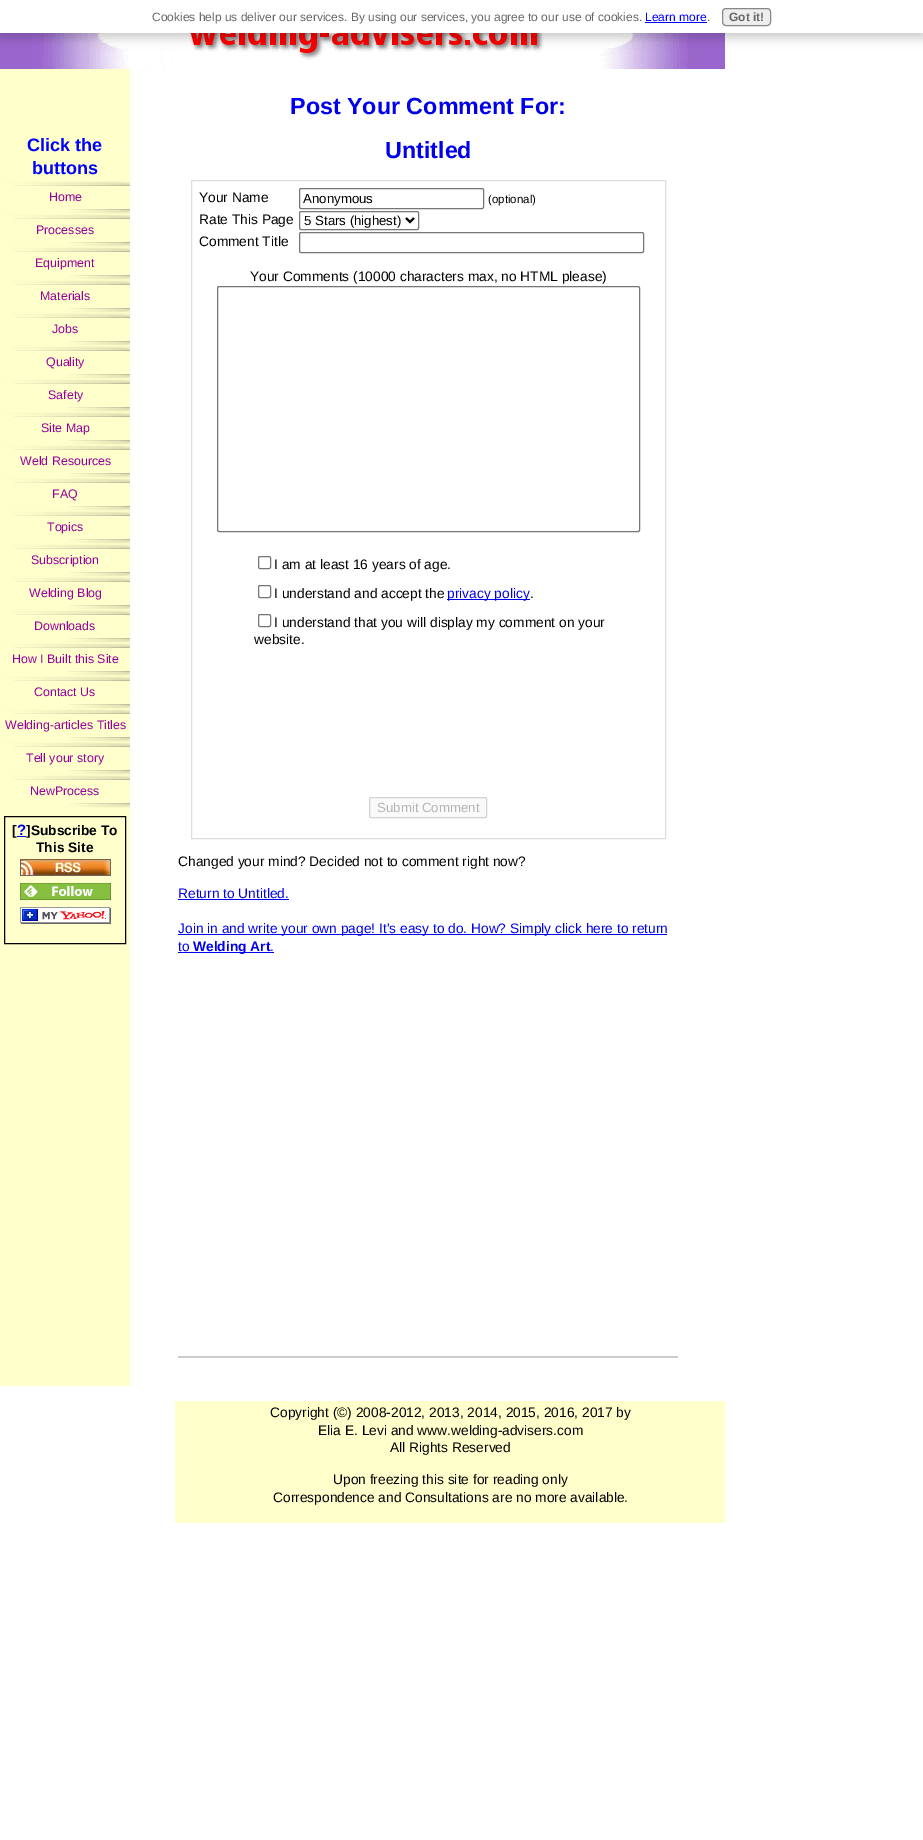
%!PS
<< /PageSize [923 1840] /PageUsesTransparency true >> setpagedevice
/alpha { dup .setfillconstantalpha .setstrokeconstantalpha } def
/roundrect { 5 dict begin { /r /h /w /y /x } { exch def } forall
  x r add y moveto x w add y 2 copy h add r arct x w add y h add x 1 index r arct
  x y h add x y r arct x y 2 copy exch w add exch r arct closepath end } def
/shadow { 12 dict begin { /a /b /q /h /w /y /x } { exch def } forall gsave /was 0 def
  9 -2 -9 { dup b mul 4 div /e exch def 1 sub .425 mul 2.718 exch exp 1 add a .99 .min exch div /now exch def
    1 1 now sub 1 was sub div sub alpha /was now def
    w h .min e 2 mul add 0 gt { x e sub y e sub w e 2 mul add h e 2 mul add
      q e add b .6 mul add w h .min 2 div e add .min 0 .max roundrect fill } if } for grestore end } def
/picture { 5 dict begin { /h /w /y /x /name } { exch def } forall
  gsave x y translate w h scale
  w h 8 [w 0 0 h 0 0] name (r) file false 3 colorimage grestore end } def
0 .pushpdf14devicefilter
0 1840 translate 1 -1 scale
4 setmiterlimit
1 setgray
0 0 923 1840 rectfill
(img1.rgb) 0 33 725 36 picture
0 setgray
-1 3 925 35 0 5 0.2 shadow
1 setgray
0 0 923 33 rectfill
/LiberationSans-Regular [12 0 0 -12 0 0] selectfont
0.4 setgray
152 21 moveto (Cookies help us deliver our services. By using our services, you agree to our use of cookies.) show
0 0 1 setrgbcolor
645 21 moveto (Learn more) show
645 22 62 1 rectfill
0.4 setgray
707 21 moveto (.) show
0.933 setgray
722.5 8.5 48 17 3.5 roundrect gsave fill grestore
0.533 setgray
stroke
/LiberationSans-Bold [12 0 0 -12 0 0] selectfont
0.4 setgray
729 21 moveto (Got it!) show
1 1 0.8 setrgbcolor
0 69 130 1317 rectfill
/LiberationSans-Bold [18 0 0 -18 0 0] selectfont
0 0 1 setrgbcolor
27 151 moveto (Click the) show
32 174 moveto (buttons) show
(img2.rgb) 6 181 124 33 picture
/LiberationSans-Regular [12.4 0 0 -12.4 0 0] selectfont
0.6 0 0.6 setrgbcolor
49 201 moveto (Home) show
(img2.rgb) 6 214 124 33 picture
36 234 moveto (Processes) show
(img2.rgb) 6 247 124 33 picture
35 267 moveto (Equipment) show
(img2.rgb) 6 280 124 33 picture
40 300 moveto (Materials) show
(img2.rgb) 6 313 124 33 picture
52 333 moveto (Jobs) show
(img2.rgb) 6 346 124 33 picture
46 366 moveto (Quality) show
(img2.rgb) 6 379 124 33 picture
48 399 moveto (Safety) show
(img2.rgb) 6 412 124 33 picture
41 432 moveto (Site Map) show
(img2.rgb) 6 445 124 33 picture
20 465 moveto (Weld Resources) show
(img2.rgb) 6 478 124 33 picture
52 498 moveto (FAQ) show
(img2.rgb) 6 511 124 33 picture
47 531 moveto (Topics) show
(img2.rgb) 6 544 124 33 picture
31 564 moveto (Subscription) show
(img2.rgb) 6 577 124 33 picture
29 597 moveto (Welding Blog) show
(img2.rgb) 6 610 124 33 picture
34 630 moveto (Downloads) show
(img2.rgb) 6 643 124 33 picture
12 663 moveto (How I Built this Site) show
(img2.rgb) 6 676 124 33 picture
34 696 moveto (Contact Us) show
(img2.rgb) 6 709 124 33 picture
5 729 moveto (Welding-articles Titles) show
(img2.rgb) 6 742 124 33 picture
26 762 moveto (Tell your story) show
(img2.rgb) 6 775 124 33 picture
30 795 moveto (NewProcess) show
0 setgray
4.5 816.5 121 127 rectstroke
/LiberationSans-Bold [13.75 0 0 -13.75 0 0] selectfont
12 835 moveto ([) show
/LiberationSans-Bold [15 0 0 -15 0 0] selectfont
0 0 0.918 setrgbcolor
17 835 moveto (?) show
0 0 0.933 setrgbcolor
17 836 9 1 rectfill
/LiberationSans-Bold [13.75 0 0 -13.75 0 0] selectfont
0 setgray
26 835 moveto (]Subscribe To) show
36 852 moveto (This Site) show
(img3.rgb) 20 859 91 17 picture
(img4.rgb) 20 883 91 17 picture
(img5.rgb) 20 907 91 17 picture
/LiberationSans-Bold [23.3 0 0 -23.3 0 0] selectfont
0 0 0.918 setrgbcolor
290 114 moveto (Post Your Comment For:) show
385 158 moveto (Untitled) show
0.867 setgray
191.5 180.5 474 658 rectstroke
/LiberationSans-Regular [13.75 0 0 -13.75 0 0] selectfont
0 setgray
199 202 moveto (Your Name) show
0.463 setgray
299.5 188.5 184 20 1.5 roundrect stroke
/LiberationSans-Regular [13.25 0 0 -13.25 0 0] selectfont
0 setgray
303 203 moveto (Anonymous) show
/LiberationSans-Regular [11.5 0 0 -11.5 0 0] selectfont
488 203 moveto (\(optional\)) show
/LiberationSans-Regular [13.75 0 0 -13.75 0 0] selectfont
199 224 moveto (Rate This Page) show
0.463 setgray
299.5 211.5 119 18 1.5 roundrect stroke
0 setgray
2 setlinewidth
newpath 406 218 moveto 410 222 lineto 414 218 lineto stroke
/LiberationSans-Regular [13.25 0 0 -13.25 0 0] selectfont
304 225 moveto (5 Stars \(highest\)) show
/LiberationSans-Regular [13.75 0 0 -13.75 0 0] selectfont
199 246 moveto (Comment Title) show
0.463 setgray
1 setlinewidth
299.5 232.5 344 20 1.5 roundrect stroke
0 setgray
250 281 moveto (Your Comments \(10000 characters max, no HTML please\)) show
0.463 setgray
217.5 286.5 422 245 1.5 roundrect stroke
258.5 556.5 12 12 1.5 roundrect stroke
0 setgray
274 569 moveto (I am at least 16 years of age.) show
0.463 setgray
258.5 585.5 12 12 1.5 roundrect stroke
0 setgray
274 598 moveto (I understand and accept the) show
0 0 0.933 setrgbcolor
447 599 83 1 rectfill
0 0 0.918 setrgbcolor
447 598 moveto (privacy policy) show
0 setgray
530 598 moveto (.) show
0.463 setgray
258.5 614.5 12 12 1.5 roundrect stroke
0 setgray
274 627 moveto (I understand that you will display my comment on your) show
254 644 moveto (website.) show
0.98 setgray
369.5 797.5 117 20 1.5 roundrect gsave fill grestore
0.824 setgray
stroke
/LiberationSans-Regular [13.25 0 0 -13.25 0 0] selectfont
0.706 setgray
377 812 moveto (Submit Comment) show
/LiberationSans-Regular [13.75 0 0 -13.75 0 0] selectfont
0 setgray
178 866 moveto (Changed your mind? Decided not to comment right now?) show
0 0 0.918 setrgbcolor
178 898 moveto (Return to Untitled.) show
0 0 0.933 setrgbcolor
178 899 111 1 rectfill
178 934 489 1 rectfill
0 0 0.918 setrgbcolor
178 933 moveto (Join in and write your own page! It's easy to do. How? Simply click here to return) show
178 951 moveto (to) show
0 0 0.933 setrgbcolor
178 952 92 1 rectfill
/LiberationSans-Bold [13.75 0 0 -13.75 0 0] selectfont
0 0 0.918 setrgbcolor
193 951 moveto (Welding Art) show
/LiberationSans-Regular [13.75 0 0 -13.75 0 0] selectfont
270 951 moveto (.) show
0 0 0.933 setrgbcolor
270 952 4 1 rectfill
0.8 setgray
178 1356 500 2 rectfill
1 1 0.8 setrgbcolor
175 1401 550 122 rectfill
0 setgray
270 1417 moveto (Copyright \(©\) 2008-2012, 2013, 2014, 2015, 2016, 2017 by) show
318 1435 moveto (Elia E. Levi and www.welding-advisers.com) show
390 1452 moveto (All Rights Reserved) show
333 1484 moveto (Upon freezing this site for reading only) show
273 1502 moveto (Correspondence and Consultations are no more available.) show
.poppdf14devicefilter showpage
